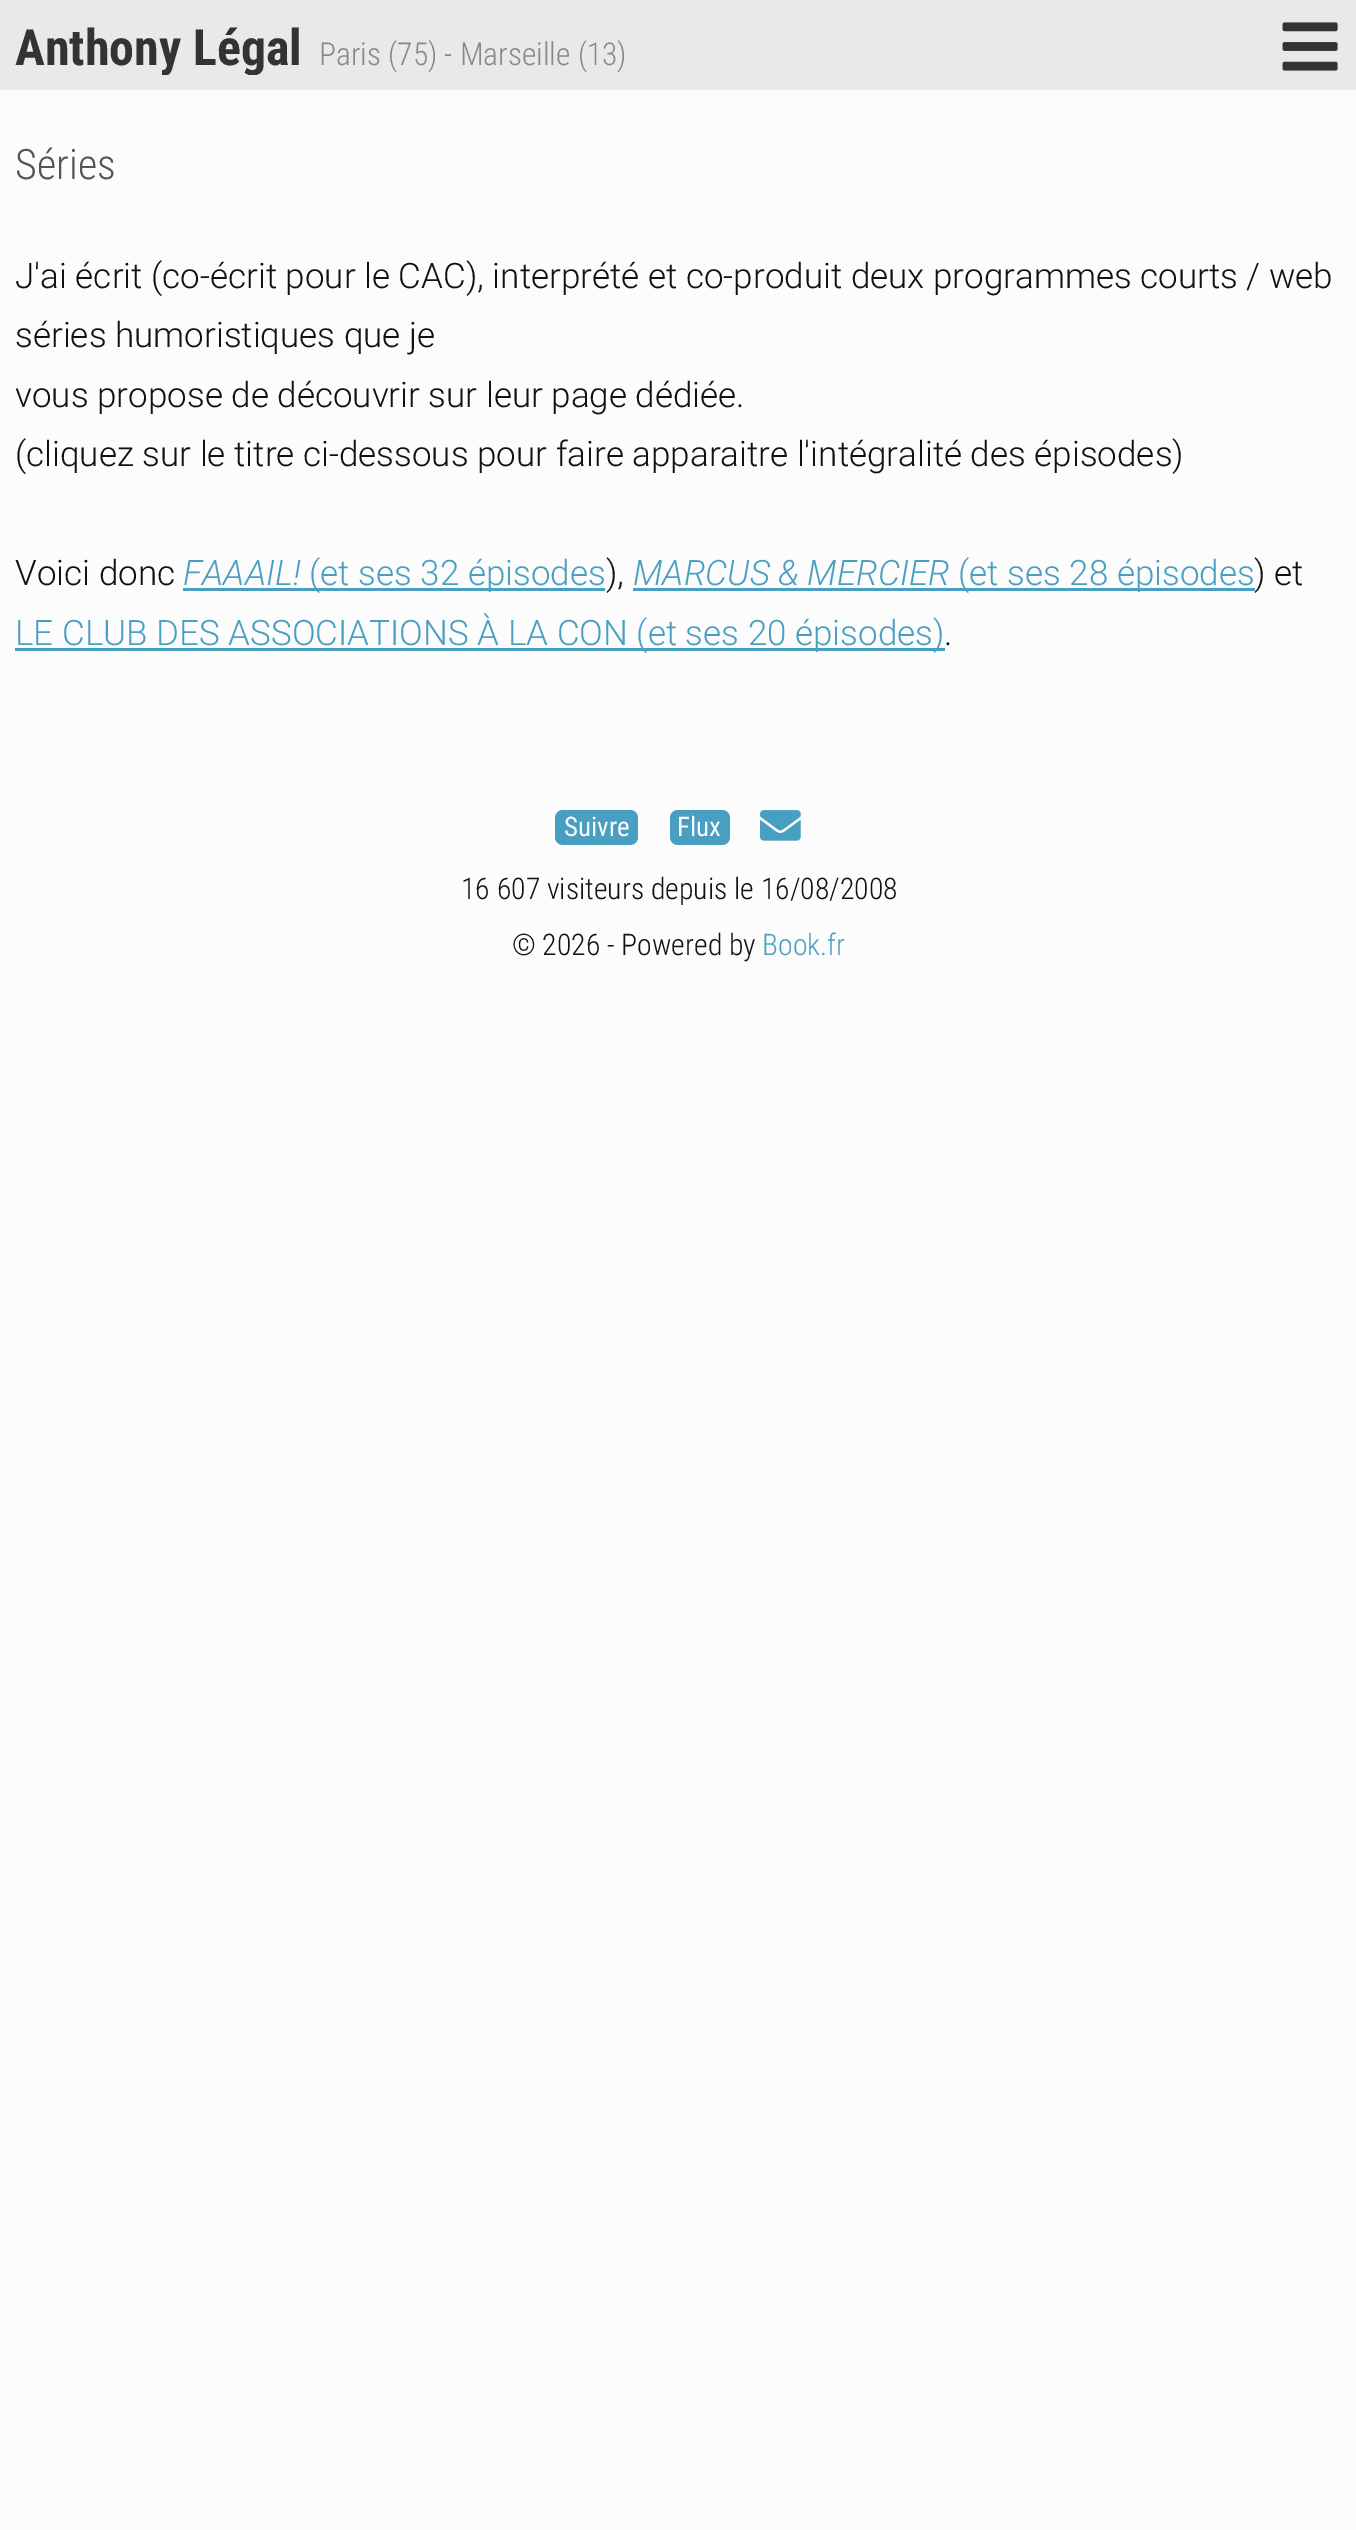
%!PS
<< /PageSize [1356 2530] >> setpagedevice
/roundrect { 5 dict begin { /r /h /w /y /x } { exch def } forall
  x r add y moveto x w add y 2 copy h add r arct x w add y h add x 1 index r arct
  x y h add x y r arct x y 2 copy exch w add exch r arct closepath end } def
/picture { 5 dict begin { /h /w /y /x /name } { exch def } forall
  gsave x y translate w h scale
  w h 8 [w 0 0 h 0 0] name (r) file false 3 colorimage grestore end } def
0 2530 translate 1 -1 scale
4 setmiterlimit
0.988 setgray
0 0 1356 2530 rectfill
0.914 setgray
0 0 1356 90 rectfill
gsave
0 15 1263 60 rectclip
/RobotoCondensed-Bold [50 0 0 -50 0 0] selectfont
0.2 setgray
15 65 moveto (Anthony Légal) show
grestore
/RobotoCondensed-Light [31.5 0 0 -31.5 0 0] selectfont
0.533 setgray
319 65 moveto (Paris \(75\) - Marseille \(13\)) show
(img1.rgb) 1282 22 56 49 picture
/RobotoCondensed-Light [42 0 0 -42 0 0] selectfont
0.333 setgray
15 179 moveto (Séries) show
/Roboto-Light [35 0 0 -35 0 0] selectfont
0.067 setgray
15 288 moveto (J'ai écrit \(co-écrit pour le CAC\), interprété et co-produit deux programmes courts / web) show
15 347 moveto (séries humoristiques que je) show
15 407 moveto (vous propose de découvrir sur leur page dédiée.) show
15 466 moveto (\(cliquez sur le titre ci-dessous pour faire apparaitre l'intégralité des épisodes\)) show
15 585 moveto (Voici donc) show
/Roboto-LightItalic [35 0 0 -35 0 0] selectfont
0.282 0.624 0.761 setrgbcolor
183 585 moveto (FAAAIL!) show
183 588 422 3 rectfill
/Roboto-Light [35 0 0 -35 0 0] selectfont
309 585 moveto (\(et ses 32 épisodes) show
0.067 setgray
606 585 moveto (\),) show
/Roboto-LightItalic [35 0 0 -35 0 0] selectfont
0.282 0.624 0.761 setrgbcolor
633 585 moveto (MARCUS & MERCIER) show
633 588 622 3 rectfill
/Roboto-Light [35 0 0 -35 0 0] selectfont
958 585 moveto (\(et ses 28 épisodes) show
0.067 setgray
1254 585 moveto (\) et) show
0.282 0.624 0.761 setrgbcolor
15 648 930 3 rectfill
15 645 moveto (LE CLUB DES ASSOCIATIONS À LA CON \(et ses 20 épisodes\)) show
0.067 setgray
944 645 moveto (.) show
0.282 0.624 0.761 setrgbcolor
555 810 83 35 8 roundrect fill
/RobotoCondensed-Regular [27 0 0 -27 0 0] selectfont
0.988 setgray
564 836 moveto (Suivre) show
0.282 0.624 0.761 setrgbcolor
670 810 60 35 8 roundrect fill
0.988 setgray
677 836 moveto (Flux) show
(img2.rgb) 760 810 41 31 picture
/RobotoCondensed-Light [29.75 0 0 -29.75 0 0] selectfont
0.067 setgray
461 899 moveto (16 607 visiteurs depuis le 16/08/2008) show
512 955 moveto (© 2026 - Powered by) show
0.282 0.624 0.761 setrgbcolor
762 955 moveto (Book.fr) show
showpage
